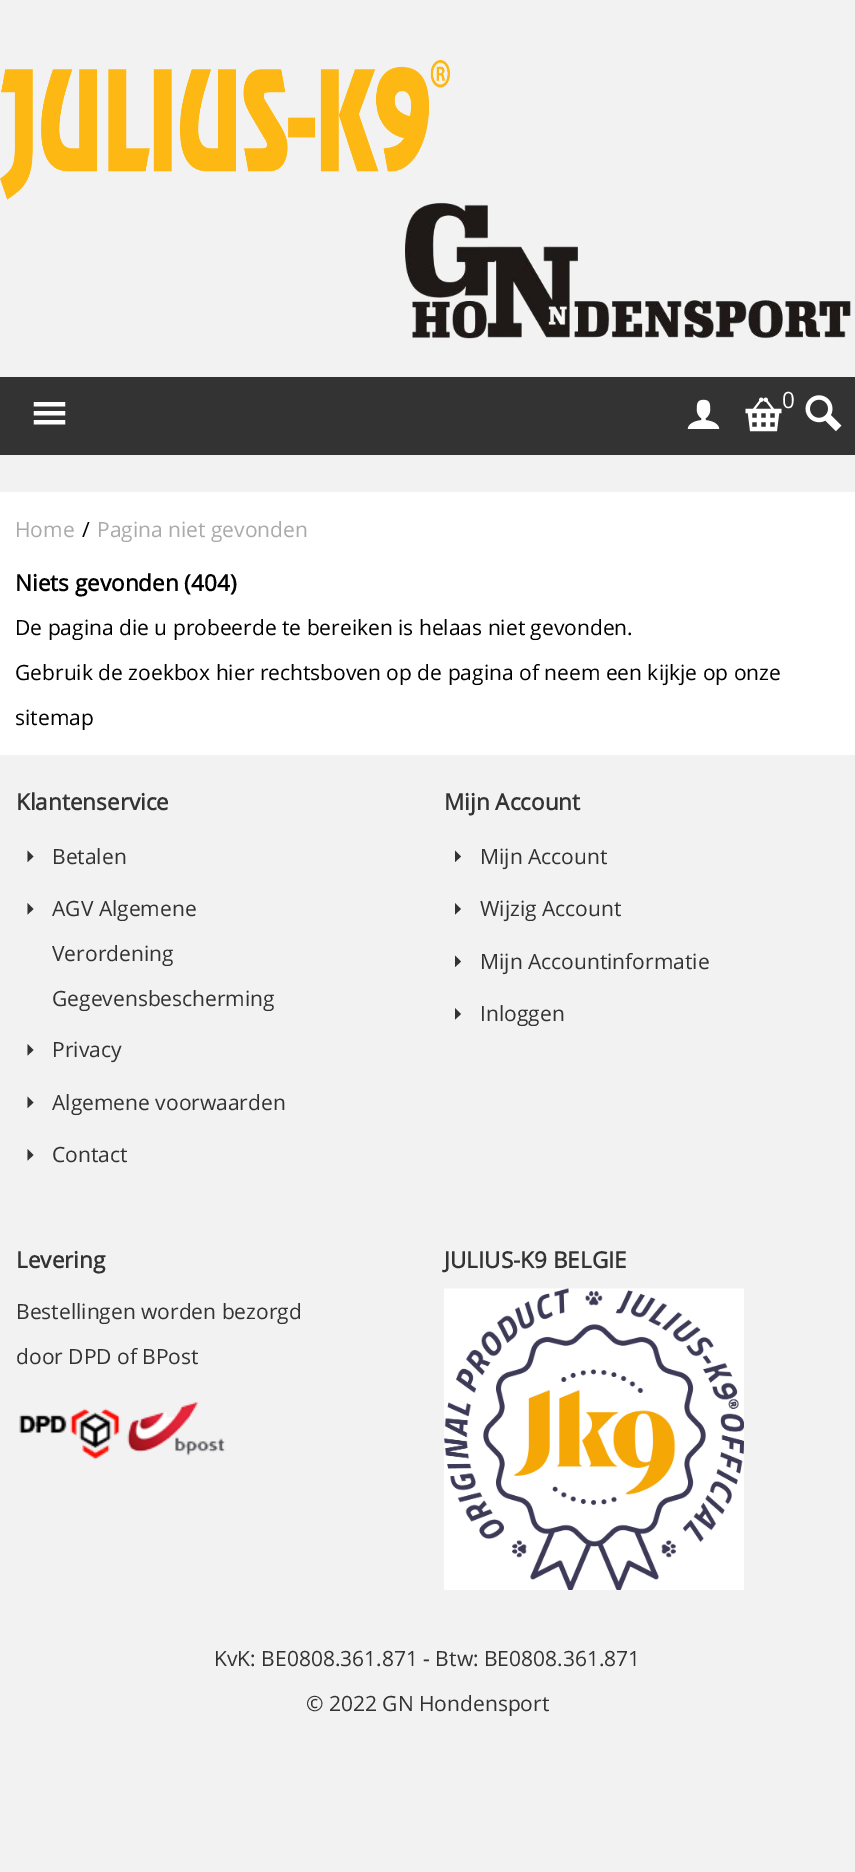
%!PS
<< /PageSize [855 1872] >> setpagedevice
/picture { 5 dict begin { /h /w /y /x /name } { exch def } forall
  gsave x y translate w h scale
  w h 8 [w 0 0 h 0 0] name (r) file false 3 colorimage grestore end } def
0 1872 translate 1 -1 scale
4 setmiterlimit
0.949 setgray
0 0 855 1872 rectfill
(img1.rgb) 0 60 450 140 picture
(img2.rgb) 405 202 446 137 picture
0.2 setgray
0 377 855 78 rectfill
(img3.rgb) 33 402 33 23 picture
(img4.rgb) 687 399 33 30 picture
(img5.rgb) 745 397 37 35 picture
/OpenSans-Regular [22.5 0 0 -22.5 0 0] selectfont
1 setgray
782 408 moveto (0) show
(img6.rgb) 805 395 37 37 picture
0 492 855 263 rectfill
/OpenSans-Regular [21 0 0 -21 0 0] selectfont
0.667 setgray
15 537 moveto (Home) show
0 setgray
82 537 moveto (/) show
0.667 setgray
97 537 moveto (Pagina niet gevonden) show
/OpenSans-Bold [22.5 0 0 -22.5 0 0] selectfont
0 setgray
15 591 moveto (Niets gevonden \(404\)) show
/OpenSans-Regular [21 0 0 -21 0 0] selectfont
15 635 moveto (De pagina die u probeerde te bereiken is helaas niet gevonden.) show
15 680 moveto (Gebruik de zoekbox hier rechtsboven op de pagina of neem een kijkje op onze) show
15 725 moveto (sitemap) show
/OpenSans-Bold [22.5 0 0 -22.5 0 0] selectfont
0.2 setgray
16 810 moveto (Klantenservice) show
newpath 27.5 862 moveto 33.5 856.5 lineto 27.5 850.5 lineto closepath fill
/OpenSans-Regular [21 0 0 -21 0 0] selectfont
52 864 moveto (Betalen) show
newpath 27.5 914.5 moveto 33.5 909 lineto 27.5 903 lineto closepath fill
52 916 moveto (AGV Algemene) show
52 961 moveto (Verordening) show
52 1006 moveto (Gegevensbescherming) show
newpath 27.5 1055.5 moveto 33.5 1050 lineto 27.5 1044 lineto closepath fill
52 1057 moveto (Privacy) show
newpath 27.5 1108 moveto 33.5 1102.5 lineto 27.5 1096.5 lineto closepath fill
52 1110 moveto (Algemene voorwaarden) show
newpath 27.5 1160.5 moveto 33.5 1155 lineto 27.5 1149 lineto closepath fill
52 1162 moveto (Contact) show
/OpenSans-Bold [22.5 0 0 -22.5 0 0] selectfont
444 810 moveto (Mijn Account) show
newpath 455 862 moveto 461 856.5 lineto 455 850.5 lineto closepath fill
/OpenSans-Regular [21 0 0 -21 0 0] selectfont
480 864 moveto (Mijn Account) show
newpath 455 914.5 moveto 461 909 lineto 455 903 lineto closepath fill
480 916 moveto (Wijzig Account) show
newpath 455 967 moveto 461 961.5 lineto 455 955.5 lineto closepath fill
480 969 moveto (Mijn Accountinformatie) show
newpath 455 1019.5 moveto 461 1014 lineto 455 1008 lineto closepath fill
480 1021 moveto (Inloggen) show
/OpenSans-Bold [22.5 0 0 -22.5 0 0] selectfont
16 1268 moveto (Levering) show
/OpenSans-Regular [21 0 0 -21 0 0] selectfont
16 1319 moveto (Bestellingen worden bezorgd) show
16 1364 moveto (door DPD of BPost) show
(img7.rgb) 19 1408 102 52 picture
(img8.rgb) 127 1401 99 55 picture
/OpenSans-Bold [22.5 0 0 -22.5 0 0] selectfont
444 1268 moveto (JULIUS-K9 BELGIE) show
(img9.rgb) 444 1288 300 302 picture
/OpenSans-Regular [21 0 0 -21 0 0] selectfont
214 1666 moveto (KvK: BE0808.361.871 - Btw: BE0808.361.871) show
306 1711 moveto (© 2022 GN Hondensport) show
showpage
